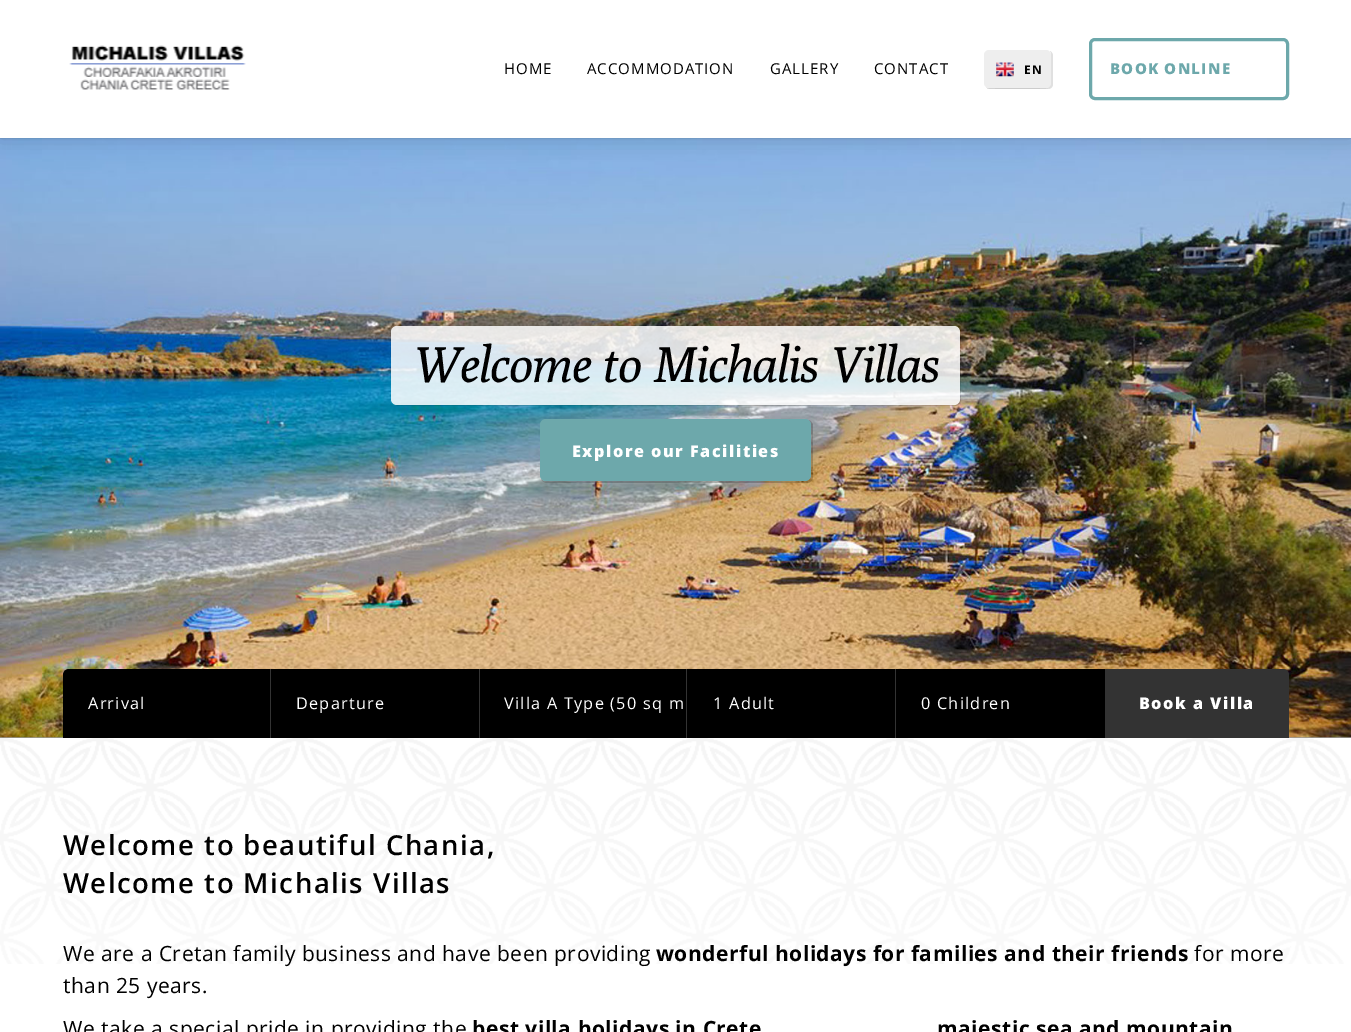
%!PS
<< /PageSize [1351 1032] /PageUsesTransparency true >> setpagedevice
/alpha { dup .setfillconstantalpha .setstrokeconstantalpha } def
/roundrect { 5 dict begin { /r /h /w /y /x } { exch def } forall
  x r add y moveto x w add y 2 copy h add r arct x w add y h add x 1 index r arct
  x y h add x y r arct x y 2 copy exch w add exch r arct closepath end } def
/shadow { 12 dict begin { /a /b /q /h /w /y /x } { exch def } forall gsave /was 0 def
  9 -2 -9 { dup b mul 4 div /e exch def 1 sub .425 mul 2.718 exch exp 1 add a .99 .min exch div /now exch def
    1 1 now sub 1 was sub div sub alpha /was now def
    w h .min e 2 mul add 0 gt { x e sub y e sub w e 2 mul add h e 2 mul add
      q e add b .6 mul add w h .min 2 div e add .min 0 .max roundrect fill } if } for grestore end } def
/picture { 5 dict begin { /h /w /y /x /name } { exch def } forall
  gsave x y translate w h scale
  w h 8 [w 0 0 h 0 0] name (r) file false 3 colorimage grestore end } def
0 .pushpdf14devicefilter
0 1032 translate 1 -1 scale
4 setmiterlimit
1 setgray
0 0 1351 1032 rectfill
0.6 setgray
0 737 1351 1 rectfill
(img3.rgb) 0 138 1351 600 picture
0 setgray
0 0 1351 138 0 9.5 0.15 shadow
0 0 1351 138 0 0.5 0.2 shadow
1 setgray
0 0 1351 138 rectfill
(img1.rgb) 69 45 177 45 picture
/OpenSans-Regular [15 0 0 -15 0 0] selectfont
0 setgray
504 74 moveto 1 0 (HOME) ashow
587 74 moveto 1 0 (ACCOMMODATION) ashow
770 74 moveto 1 0 (GALLERY) ashow
874 74 moveto 1 0 (CONTACT) ashow
0.878 setgray
newpath 986 86 moveto 986 88 988 89 990 89 curveto 1048 89 lineto 1051 89 1053 87 1053 84 curveto 1053 56 lineto 1053 54 1052 52 1050 51 curveto 1051 52 1051 54 1051 55 curveto 1051 82 lineto 1051 85 1049 88 1046 88 curveto 989 88 lineto 988 88 986 87 986 86 curveto closepath fill
0.773 setgray
newpath 987 88 moveto 989 89 1046 89 1048 88 curveto closepath fill
0.933 setgray
984 50 67 38 5 roundrect fill
(img2.rgb) 996 62 18 15 picture
/OpenSans-Bold [12 0 0 -12 0 0] selectfont
0 setgray
1024 74 moveto 1.25 0 (EN) ashow
0.427 0.659 0.671 setrgbcolor
3 setlinewidth
1090.5 39.5 197 59 4.5 roundrect stroke
/OpenSans-ExtraBold [15 0 0 -15 0 0] selectfont
1110 74 moveto 1.25 0 (BOOK ONLINE) ashow
0.1 alpha
0 setgray
newpath 395 404 moveto 396 405 397 406 399 406 curveto 955 406 lineto 958 406 961 403 961 400 curveto 961 334 lineto 961 332 960 331 959 330 curveto 960 332 lineto 960 399 lineto 960 402 957 405 954 405 curveto 398 405 lineto closepath fill
0.85 alpha
1 setgray
391 326 569 79 6 roundrect fill
/Poly-Italic [50 0 0 -50 0 0] selectfont
1 alpha
0 setgray
413 382 moveto -0.6 0 (Welcome to Michalis Villas) ashow
0.2 alpha
newpath 541 479 moveto 542 481 544 483 547 483 curveto 807 483 lineto 810 483 813 480 813 477 curveto 813 426 lineto 813 423 811 421 809 420 curveto 810 422 811 423 811 425 curveto 811 475 lineto 811 478 808 481 805 481 curveto 546 481 lineto 544 481 542 480 541 479 curveto closepath fill
1 alpha
0.427 0.659 0.671 setrgbcolor
540 419 271 62 6 roundrect fill
/OpenSans-ExtraBold [16.25 0 0 -16.25 0 0] selectfont
1 setgray
572 457 moveto 1.5 0 (Explore our Facilities) ashow
0 setgray
newpath 69 669 moveto 1279 669 lineto 1284.5 669 1289 673.5 1289 679 curveto 1289 738 lineto 63 738 lineto 63 675 lineto 63 671.5 65.5 669 69 669 curveto closepath fill
0.2 setgray
270 669 1 69 rectfill
/OpenSans-Regular [16.25 0 0 -16.25 0 0] selectfont
1 setgray
88 709 moveto 1.25 0 (Arrival) ashow
0.2 setgray
479 669 1 69 rectfill
1 setgray
296 709 moveto 1.25 0 (Departure) ashow
0.2 setgray
686 669 1 69 rectfill
1 setgray
504 709 moveto 1.25 0 (Villa A Type \(50 sq m) ashow
0.2 setgray
895 669 1 69 rectfill
1 setgray
713 709 moveto 1.25 0 (1 Adult) ashow
921 709 moveto 1.25 0 (0 Children) ashow
0.2 setgray
newpath 1105 669 moveto 1283 669 lineto 1286.5 669 1289 671.5 1289 675 curveto 1289 738 lineto 1105 738 lineto closepath fill
/OpenSans-ExtraBold [16.25 0 0 -16.25 0 0] selectfont
1 setgray
1139 709 moveto 1.5 0 (Book a Villa) ashow
(img4.rgb) 0 738 1351 226 picture
/OpenSans-SemiBold [27.5 0 0 -27.5 0 0] selectfont
0 setgray
63 855 moveto 1.5 0 (Welcome to beautiful Chania,) ashow
63 893 moveto 1.5 0 (Welcome to Michalis Villas) ashow
/OpenSans-Regular [21 0 0 -21 0 0] selectfont
63 961 moveto 0.5 0 (We are a Cretan family business and have been providing) ashow
/OpenSans-Bold [21 0 0 -21 0 0] selectfont
656 961 moveto 0.5 0 (wonderful holidays for families and their friends) ashow
/OpenSans-Regular [21 0 0 -21 0 0] selectfont
1194 961 moveto 0.5 0 (for more) ashow
63 993 moveto 0.5 0 (than 25 years.) ashow
63 1036 moveto 0.5 0 (We take a special pride in providing the) ashow
/OpenSans-Bold [21 0 0 -21 0 0] selectfont
472 1036 moveto 0.5 0 (best villa holidays in Crete) ashow
937 1036 moveto 0.5 0 (majestic sea and mountain) ashow
.poppdf14devicefilter showpage
